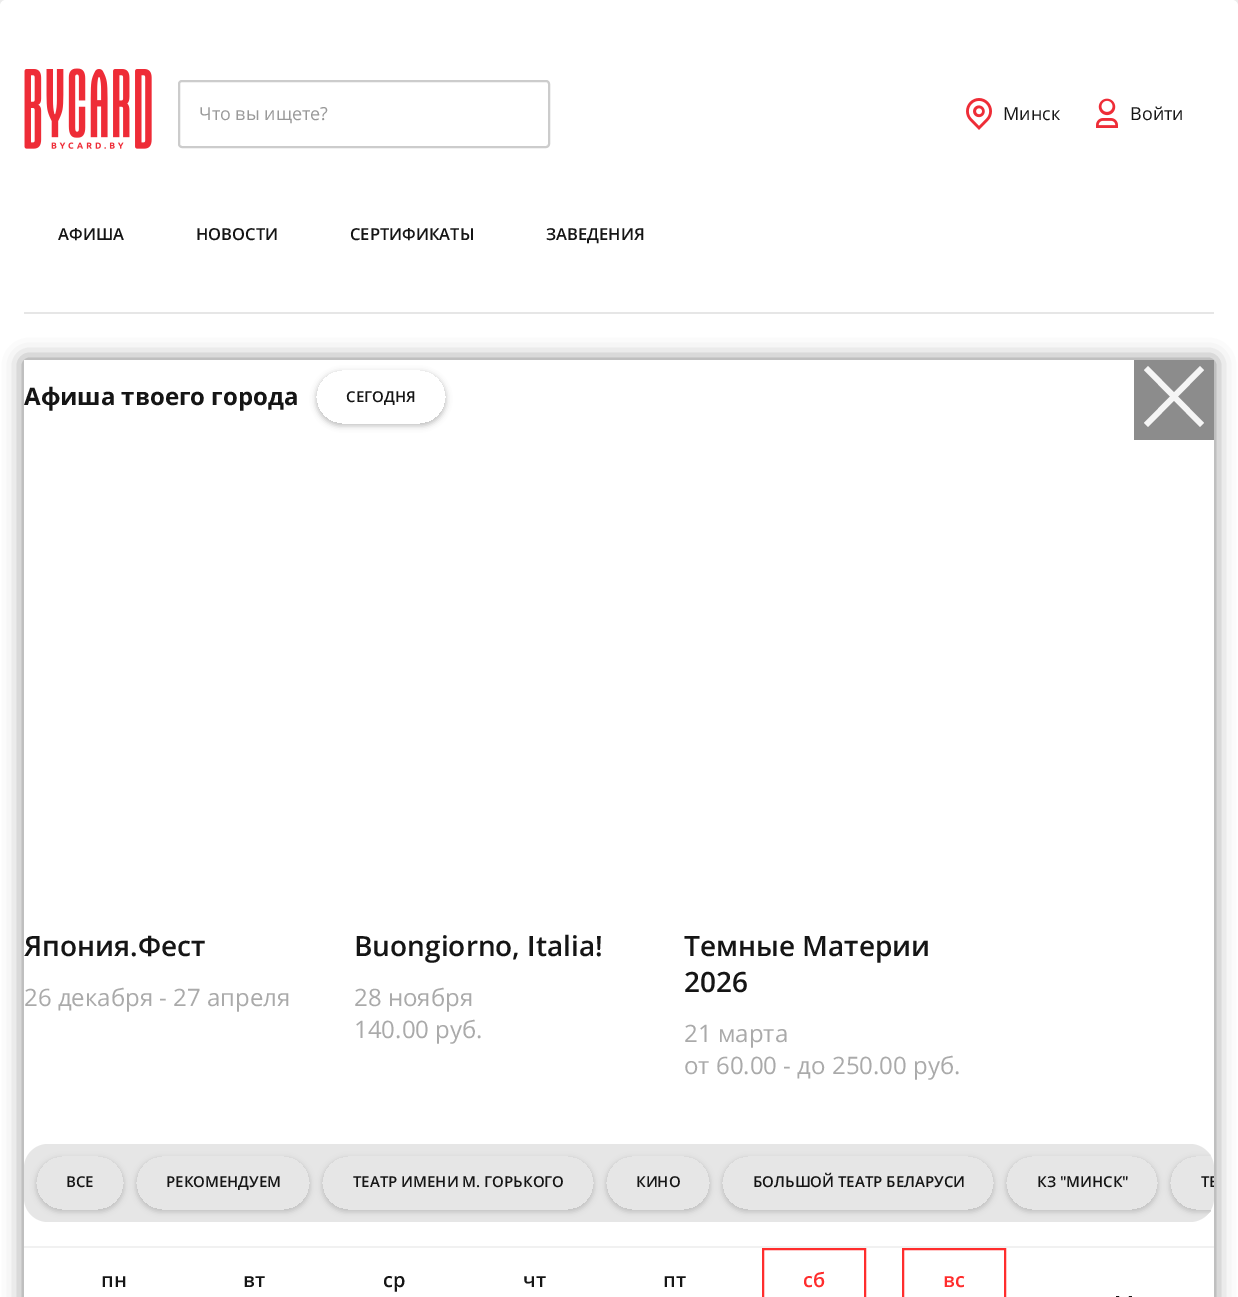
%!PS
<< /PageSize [1238 1297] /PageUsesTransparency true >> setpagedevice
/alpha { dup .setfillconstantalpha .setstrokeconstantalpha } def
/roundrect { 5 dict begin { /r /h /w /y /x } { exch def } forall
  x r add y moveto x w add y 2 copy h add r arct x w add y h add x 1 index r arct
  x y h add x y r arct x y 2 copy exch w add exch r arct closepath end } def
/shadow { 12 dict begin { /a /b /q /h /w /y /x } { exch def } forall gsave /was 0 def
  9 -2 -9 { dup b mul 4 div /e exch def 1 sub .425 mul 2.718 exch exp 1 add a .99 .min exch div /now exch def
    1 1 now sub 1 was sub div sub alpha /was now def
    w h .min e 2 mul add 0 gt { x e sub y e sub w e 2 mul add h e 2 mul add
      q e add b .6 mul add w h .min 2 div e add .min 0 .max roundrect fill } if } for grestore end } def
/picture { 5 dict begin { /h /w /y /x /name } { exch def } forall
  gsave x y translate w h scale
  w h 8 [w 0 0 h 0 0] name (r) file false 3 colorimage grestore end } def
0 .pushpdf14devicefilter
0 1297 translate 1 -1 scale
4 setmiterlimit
0.973 setgray
0 0 1238 1297 rectfill
0 setgray
-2 -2 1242 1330 8 7.5 0.1 shadow
1 setgray
0 0 1238 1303 6 roundrect fill
0.902 setgray
24 312 1190 2 rectfill
(img1.rgb) 24 68 128 81 picture
0.8 setgray
2 setlinewidth
179 81 370 66 3 roundrect stroke
/OpenSans-Regular [18 0 0 -18 0 0] selectfont
0.6 setgray
199 120 moveto (Что вы ищете?) show
(img2.rgb) 966 98 26 32 picture
0.082 setgray
1003 120 moveto (Минск) show
(img3.rgb) 1096 98 22 30 picture
1130 120 moveto (Войти) show
/OpenSans-SemiBold [16.5 0 0 -16.5 0 0] selectfont
58 240 moveto (АФИША) show
196 240 moveto (НОВОСТИ) show
350 240 moveto (СЕРТИФИКАТЫ) show
546 240 moveto (ЗАВЕДЕНИЯ) show
/OpenSans-Bold [24 0 0 -24 0 0] selectfont
24 405 moveto (Афиша твоего города) show
gsave
newpath 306 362 moveto 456 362 lineto 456 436 lineto 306 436 lineto closepath 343 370 moveto 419 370 lineto 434 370 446 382 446 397 curveto 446 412 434 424 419 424 curveto 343 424 lineto 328 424 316 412 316 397 curveto 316 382 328 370 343 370 curveto closepath eoclip newpath
0.749 setgray
316 372 130 54 27 3 1 shadow
grestore
/OpenSans-SemiBold [15 0 0 -15 0 0] selectfont
346 402 moveto (СЕГОДНЯ) show
/OpenSans-SemiBold [28 0 0 -28 0 0] selectfont
24 956 moveto (Япония.Фест) show
/OpenSans-Regular [24 0 0 -24 0 0] selectfont
0.667 setgray
24 1006 moveto (26 декабря - 27 апреля) show
/OpenSans-SemiBold [28 0 0 -28 0 0] selectfont
0.082 setgray
354 956 moveto (Buongiorno, Italia!) show
/OpenSans-Regular [24 0 0 -24 0 0] selectfont
0.667 setgray
354 1006 moveto (28 ноября) show
354 1038 moveto (140.00 руб.) show
/OpenSans-SemiBold [28 0 0 -28 0 0] selectfont
0.082 setgray
684 956 moveto (Темные Материи) show
684 992 moveto (2026) show
/OpenSans-Regular [24 0 0 -24 0 0] selectfont
0.667 setgray
684 1042 moveto (21 марта) show
684 1074 moveto (от 60.00 - до 250.00 руб.) show
0.902 setgray
24 1144 1190 78 24 roundrect fill
gsave
newpath 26 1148 moveto 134 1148 lineto 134 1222 lineto 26 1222 lineto closepath 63 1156 moveto 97 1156 lineto 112 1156 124 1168 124 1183 curveto 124 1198 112 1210 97 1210 curveto 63 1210 lineto 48 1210 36 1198 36 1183 curveto 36 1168 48 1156 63 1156 curveto closepath eoclip newpath
0.749 setgray
36 1158 88 54 27 3 1 shadow
grestore
/OpenSans-SemiBold [15 0 0 -15 0 0] selectfont
0.082 setgray
66 1187 moveto (ВСЕ) show
gsave
newpath 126 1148 moveto 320 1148 lineto 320 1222 lineto 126 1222 lineto closepath 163 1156 moveto 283 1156 lineto 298 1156 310 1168 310 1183 curveto 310 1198 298 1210 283 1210 curveto 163 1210 lineto 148 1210 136 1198 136 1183 curveto 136 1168 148 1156 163 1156 curveto closepath eoclip newpath
0.749 setgray
136 1158 174 54 27 3 1 shadow
grestore
166 1187 moveto (РЕКОМЕНДУЕМ) show
gsave
newpath 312 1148 moveto 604 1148 lineto 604 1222 lineto 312 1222 lineto closepath 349 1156 moveto 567 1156 lineto 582 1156 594 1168 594 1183 curveto 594 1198 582 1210 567 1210 curveto 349 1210 lineto 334 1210 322 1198 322 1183 curveto 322 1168 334 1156 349 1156 curveto closepath eoclip newpath
0.749 setgray
322 1158 272 54 27 3 1 shadow
grestore
353 1187 moveto (ТЕАТР ИМЕНИ М. ГОРЬКОГО) show
gsave
newpath 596 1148 moveto 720 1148 lineto 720 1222 lineto 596 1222 lineto closepath 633 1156 moveto 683 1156 lineto 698 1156 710 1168 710 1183 curveto 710 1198 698 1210 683 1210 curveto 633 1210 lineto 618 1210 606 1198 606 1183 curveto 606 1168 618 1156 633 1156 curveto closepath eoclip newpath
0.749 setgray
606 1158 104 54 27 3 1 shadow
grestore
636 1187 moveto (КИНО) show
gsave
newpath 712 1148 moveto 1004 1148 lineto 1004 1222 lineto 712 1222 lineto closepath 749 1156 moveto 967 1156 lineto 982 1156 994 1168 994 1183 curveto 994 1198 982 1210 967 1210 curveto 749 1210 lineto 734 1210 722 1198 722 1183 curveto 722 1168 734 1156 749 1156 curveto closepath eoclip newpath
0.749 setgray
722 1158 272 54 27 3 1 shadow
grestore
753 1187 moveto (БОЛЬШОЙ ТЕАТР БЕЛАРУСИ) show
gsave
newpath 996 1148 moveto 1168 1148 lineto 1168 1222 lineto 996 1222 lineto closepath 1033 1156 moveto 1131 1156 lineto 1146 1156 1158 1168 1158 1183 curveto 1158 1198 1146 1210 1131 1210 curveto 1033 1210 lineto 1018 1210 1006 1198 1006 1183 curveto 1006 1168 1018 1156 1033 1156 curveto closepath eoclip newpath
0.749 setgray
1006 1158 152 54 27 3 1 shadow
grestore
1037 1187 moveto (КЗ "МИНСК") show
gsave
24 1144 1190 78 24 roundrect clip newpath
newpath 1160 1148 moveto 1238 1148 lineto 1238 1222 lineto 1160 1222 lineto closepath 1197 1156 moveto 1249 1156 lineto 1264 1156 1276 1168 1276 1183 curveto 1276 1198 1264 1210 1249 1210 curveto 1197 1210 lineto 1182 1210 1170 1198 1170 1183 curveto 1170 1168 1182 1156 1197 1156 curveto closepath eoclip newpath
0.749 setgray
1170 1158 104 54 27 3 1 shadow
grestore
gsave
24 1144 1190 78 24 roundrect clip newpath
1201 1187 moveto (ТЕ) show
grestore
0.945 setgray
24 1246 1190 2 rectfill
/OpenSans-SemiBold [20 0 0 -20 0 0] selectfont
0.082 setgray
101 1287 moveto (пн) show
243 1287 moveto (вт) show
383 1287 moveto (ср) show
523 1287 moveto (чт) show
663 1287 moveto (пт) show
1 0.176 0.176 setrgbcolor
763 1249 102 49 rectstroke
803 1287 moveto (сб) show
903 1249 102 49 rectstroke
943 1287 moveto (вс) show
(img4.rgb) 1116 1296 16 1 picture
gsave
newpath 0 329 moveto 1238 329 lineto 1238 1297 lineto 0 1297 lineto closepath 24 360 moveto 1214 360 lineto 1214 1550 lineto 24 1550 lineto closepath eoclip newpath
0 setgray
24 360 1190 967 0 10 0.5 shadow
grestore
0.549 setgray
1134 360 80 80 rectfill
0.961 setgray
newpath 1148 366 moveto 1204 423 lineto 1200 427 lineto 1144 370 lineto closepath fill
newpath 1144 423 moveto 1200 366 lineto 1204 370 lineto 1148 427 lineto closepath fill
.poppdf14devicefilter showpage
